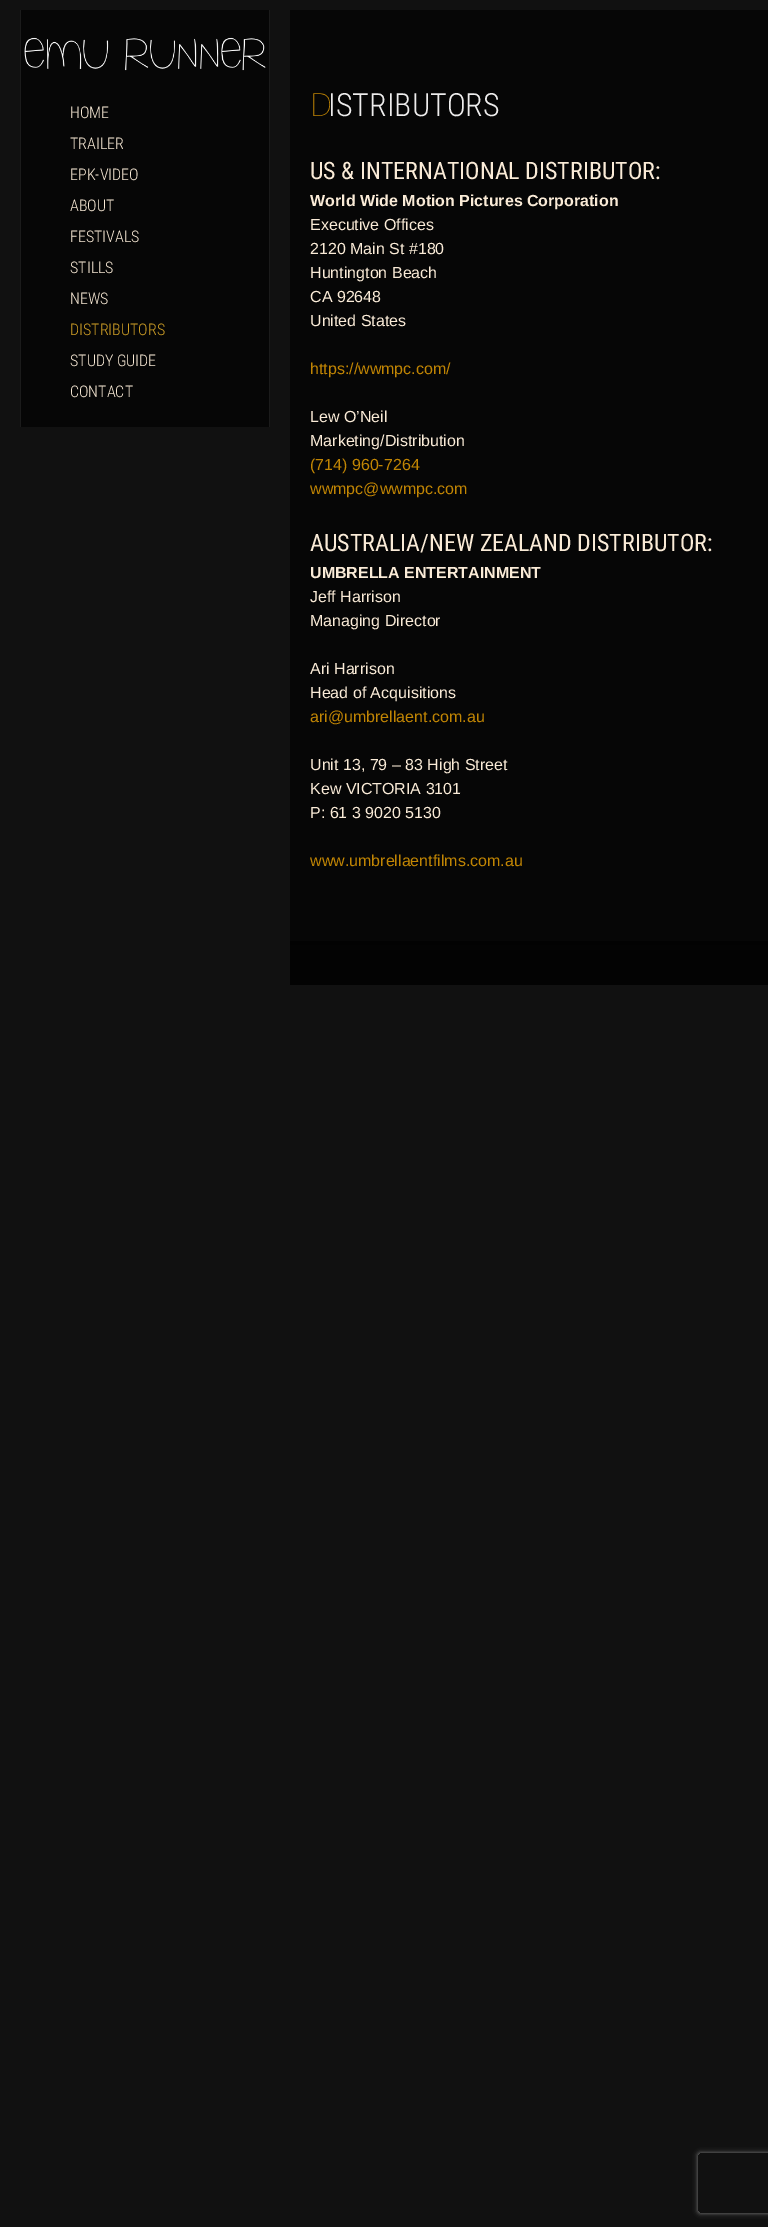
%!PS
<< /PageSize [768 2227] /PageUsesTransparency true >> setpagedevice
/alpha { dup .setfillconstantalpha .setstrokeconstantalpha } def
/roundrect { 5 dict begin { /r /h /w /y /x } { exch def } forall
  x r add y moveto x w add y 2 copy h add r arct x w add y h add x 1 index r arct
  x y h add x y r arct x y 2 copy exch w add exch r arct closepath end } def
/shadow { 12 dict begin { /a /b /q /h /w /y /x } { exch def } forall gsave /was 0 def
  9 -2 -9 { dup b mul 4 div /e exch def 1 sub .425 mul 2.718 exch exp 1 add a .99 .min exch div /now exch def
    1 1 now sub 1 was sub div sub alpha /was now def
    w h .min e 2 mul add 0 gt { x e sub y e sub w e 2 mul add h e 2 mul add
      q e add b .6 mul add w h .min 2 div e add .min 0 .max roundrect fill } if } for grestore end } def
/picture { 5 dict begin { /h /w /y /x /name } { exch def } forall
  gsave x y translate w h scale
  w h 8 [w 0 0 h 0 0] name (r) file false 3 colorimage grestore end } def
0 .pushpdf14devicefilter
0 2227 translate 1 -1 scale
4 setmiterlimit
0.067 setgray
0 0 768 2227 rectfill
0.106 setgray
269 10 1 417 rectfill
20 10 1 417 rectfill
0.024 setgray
21 10 248 417 rectfill
(img1.rgb) 24 37 242 34 picture
/RobotoCondensed-Light [16 0 0 -16 0 0] selectfont
0.98 0.922 0.843 setrgbcolor
70 118 moveto (HOME) show
70 149 moveto (TRAILER) show
70 180 moveto (EPK-VIDEO) show
70 211 moveto (ABOUT) show
70 242 moveto (FESTIVALS) show
70 273 moveto (STILLS) show
70 304 moveto (NEWS) show
0.808 0.62 0.145 setrgbcolor
70 335 moveto (DISTRIBUTORS) show
0.98 0.922 0.843 setrgbcolor
70 366 moveto (STUDY GUIDE) show
70 397 moveto (CONTACT) show
0.024 setgray
290 10 478 931 rectfill
/NotoSans-Thin [32 0 0 -32 0 0] selectfont
0.757 0.522 0.012 setrgbcolor
310 116 moveto (D) show
/RobotoCondensed-Light [32 0 0 -32 0 0] selectfont
0.933 0.929 0.929 setrgbcolor
328 116 moveto (ISTRIBUTORS) show
/RobotoCondensed-Regular [24 0 0 -24 0 0] selectfont
0.98 0.922 0.843 setrgbcolor
310 179 moveto (US & INTERNATIONAL DISTRIBUTOR:) show
/LiberationSans-Bold [16 0 0 -16 0 0] selectfont
310 206 moveto (World Wide Motion Pictures Corporation) show
/LiberationSans-Regular [16 0 0 -16 0 0] selectfont
310 230 moveto (Executive Offices) show
310 254 moveto (2120 Main St #180) show
310 278 moveto (Huntington Beach) show
310 302 moveto (CA 92648) show
310 326 moveto (United States) show
0.757 0.522 0.012 setrgbcolor
310 374 moveto (https://wwmpc.com/) show
0.98 0.922 0.843 setrgbcolor
310 422 moveto (Lew O’Neil) show
310 446 moveto (Marketing/Distribution) show
0.757 0.522 0.012 setrgbcolor
310 470 moveto (\(714\) 960-7264) show
310 494 moveto (wwmpc@wwmpc.com) show
/RobotoCondensed-Regular [24 0 0 -24 0 0] selectfont
0.98 0.922 0.843 setrgbcolor
310 551 moveto (AUSTRALIA/NEW ZEALAND DISTRIBUTOR:) show
/LiberationSans-Bold [16 0 0 -16 0 0] selectfont
310 578 moveto (UMBRELLA ENTERTAINMENT) show
/LiberationSans-Regular [16 0 0 -16 0 0] selectfont
310 602 moveto (Jeff Harrison) show
310 626 moveto (Managing Director) show
310 674 moveto (Ari Harrison) show
310 698 moveto (Head of Acquisitions) show
0.757 0.522 0.012 setrgbcolor
310 722 moveto (ari@umbrellaent.com.au) show
0.98 0.922 0.843 setrgbcolor
310 770 moveto (Unit 13, 79 – 83 High Street) show
310 794 moveto (Kew VICTORIA 3101) show
310 818 moveto (P: 61 3 9020 5130) show
0.757 0.522 0.012 setrgbcolor
310 866 moveto (www.umbrellaentfilms.com.au) show
0.008 setgray
290 941 478 4 rectfill
0.012 setgray
290 945 478 40 rectfill
gsave
newpath 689 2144 moveto 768 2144 lineto 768 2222 lineto 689 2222 lineto closepath 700 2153 moveto 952 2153 lineto 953 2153 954 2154 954 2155 curveto 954 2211 lineto 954 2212 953 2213 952 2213 curveto 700 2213 lineto 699 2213 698 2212 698 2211 curveto 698 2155 lineto 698 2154 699 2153 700 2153 curveto closepath eoclip newpath
0.502 setgray
698 2153 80 60 2 2.5 1 shadow
grestore
.poppdf14devicefilter showpage
